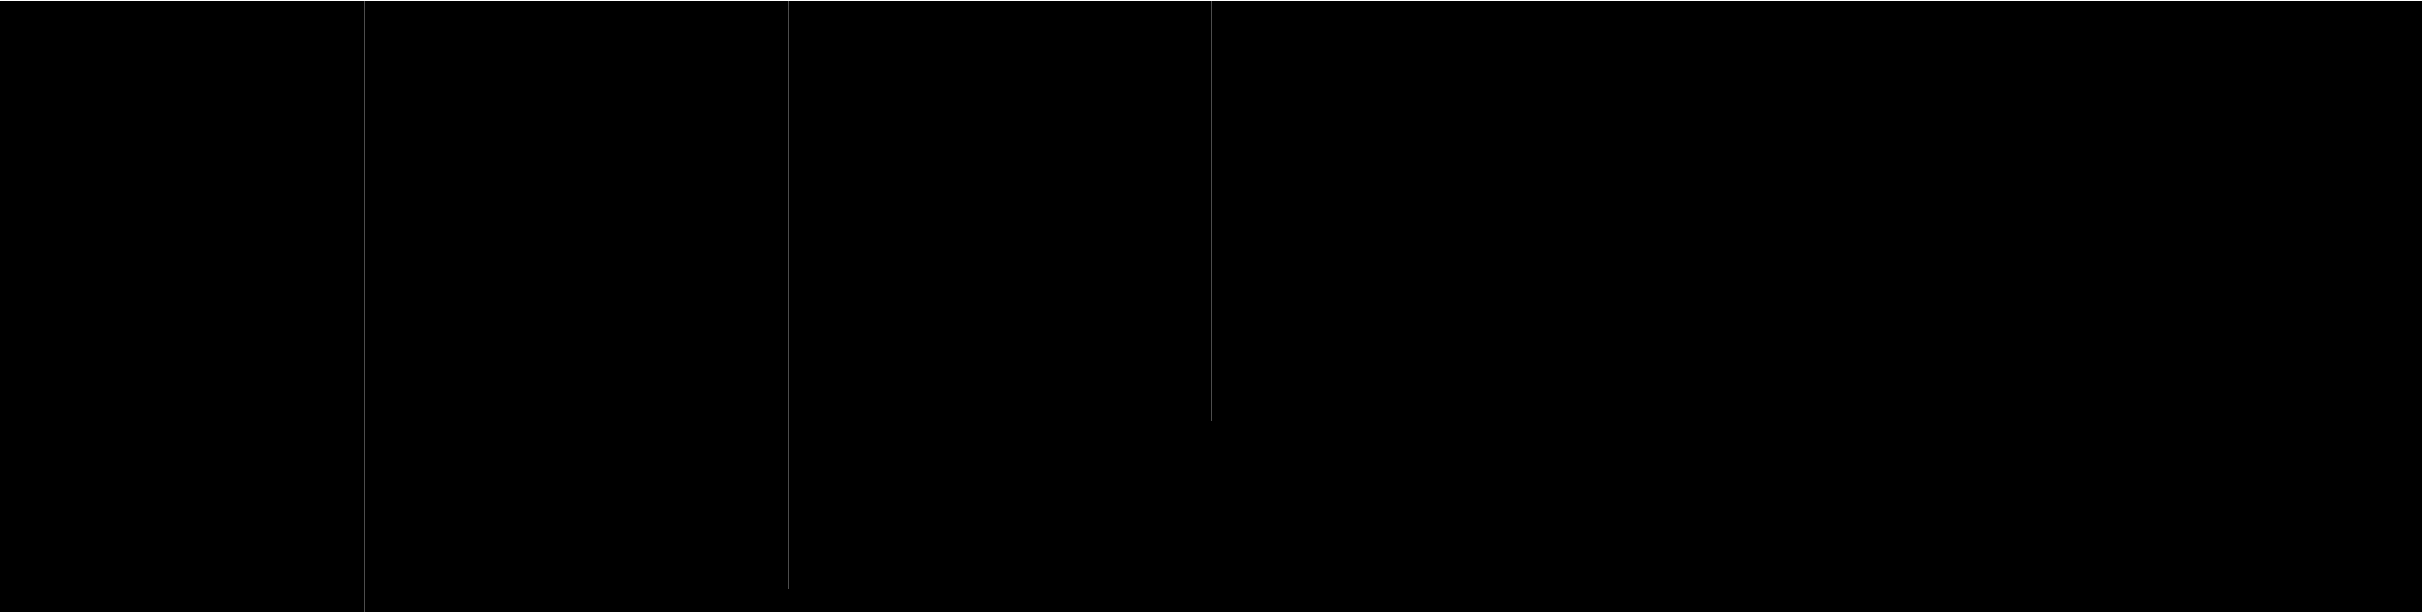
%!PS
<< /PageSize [2422 612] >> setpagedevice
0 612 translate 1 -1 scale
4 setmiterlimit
0 setgray
0 0 2422 612 rectfill
0.302 setgray
364 0 1 612 rectfill
788 0 1 589 rectfill
1211 0 1 421 rectfill
1 setgray
0 0 2422 1 rectfill
showpage
